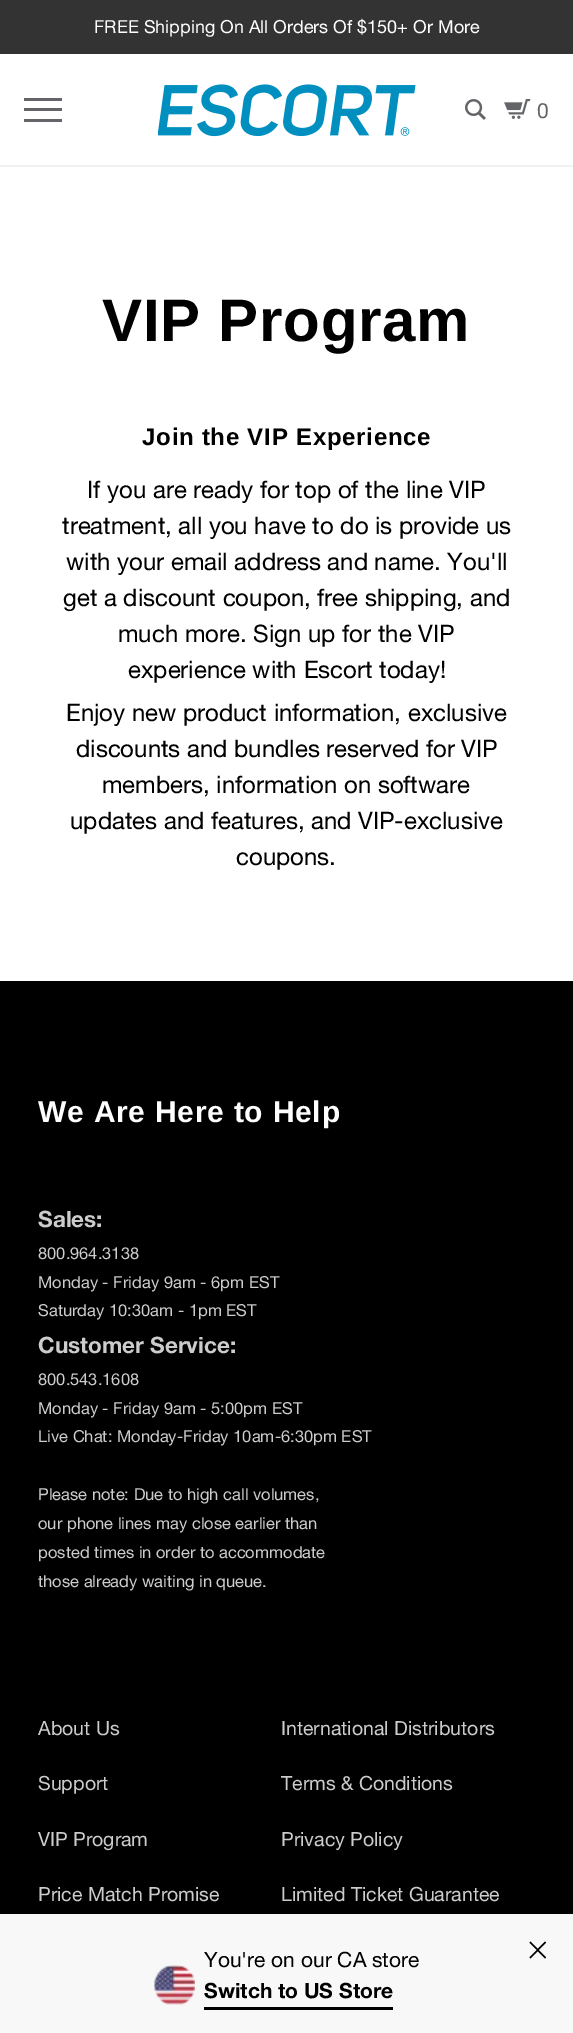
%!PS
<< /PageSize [573 2033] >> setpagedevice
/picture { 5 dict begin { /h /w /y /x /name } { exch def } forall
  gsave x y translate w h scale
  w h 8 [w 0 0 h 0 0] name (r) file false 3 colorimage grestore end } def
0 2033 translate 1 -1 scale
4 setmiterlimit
1 setgray
0 0 573 2033 rectfill
0.2 setgray
0 0 573 54 rectfill
/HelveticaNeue-Regular [18 0 0 -18 0 0] selectfont
1 setgray
94 33 moveto (FREE Shipping On All Orders Of $150+ Or More) show
0.945 setgray
0 165 573 2 rectfill
0.392 0.396 0.412 setrgbcolor
24 98 38 3 rectfill
24 108 38 3 rectfill
24 119 38 3 rectfill
(img1.rgb) 158 84 258 53 picture
(img2.rgb) 465 99 21 21 picture
(img3.rgb) 504 99 27 20 picture
/HelveticaNeue-Regular [21 0 0 -21 0 0] selectfont
537 118 moveto (0) show
/LiberationSans-Bold [60 0 0 -60 0 0] selectfont
0 setgray
102 341 moveto 0.75 0 (VIP Program) ashow
/LiberationSans-Bold [24 0 0 -24 0 0] selectfont
142 445 moveto 0.75 0 (Join the VIP Experience) ashow
/HelveticaNeue-Regular [24 0 0 -24 0 0] selectfont
87 498 moveto (If you are ready for top of the line VIP) show
62 534 moveto (treatment, all you have to do is provide us) show
66 570 moveto (with your email address and name. You'll) show
63 606 moveto (get a discount coupon, free shipping, and) show
118 642 moveto (much more. Sign up for the VIP) show
128 678 moveto (experience with Escort today!) show
66 721 moveto (Enjoy new product information, exclusive) show
76 757 moveto (discounts and bundles reserved for VIP) show
102 793 moveto (members, information on software) show
70 829 moveto (updates and features, and VIP-exclusive) show
236 865 moveto (coupons.) show
0 981 573 933 rectfill
/LiberationSans-Bold [30 0 0 -30 0 0] selectfont
1 setgray
38 1122 moveto 0.75 0 (We Are Here to Help) ashow
/HelveticaNeue-Bold [22.5 0 0 -22.5 0 0] selectfont
0.8 setgray
38 1227 moveto (Sales:) show
/HelveticaNeue-Regular [16.5 0 0 -16.5 0 0] selectfont
38 1259 moveto (800.964.3138) show
38 1288 moveto (Monday - Friday 9am - 6pm EST) show
38 1316 moveto (Saturday 10:30am - 1pm EST) show
/HelveticaNeue-Bold [22.5 0 0 -22.5 0 0] selectfont
38 1353 moveto (Customer Service:) show
/HelveticaNeue-Regular [16.5 0 0 -16.5 0 0] selectfont
38 1385 moveto (800.543.1608) show
38 1414 moveto (Monday - Friday 9am - 5:00pm EST) show
38 1442 moveto (Live Chat: Monday-Friday 10am-6:30pm EST) show
38 1500 moveto (Please note: Due to high call volumes,) show
38 1529 moveto (our phone lines may close earlier than) show
38 1558 moveto (posted times in order to accommodate) show
38 1587 moveto (those already waiting in queue.) show
/HelveticaNeue-Regular [19.5 0 0 -19.5 0 0] selectfont
38 1735 moveto (About Us) show
281 1735 moveto (International Distributors) show
38 1790 moveto (Support) show
281 1790 moveto (Terms & Conditions) show
38 1846 moveto (VIP Program) show
281 1846 moveto (Privacy Policy) show
38 1901 moveto (Price Match Promise) show
281 1901 moveto (Limited Ticket Guarantee) show
0.973 setgray
0 1914 573 119 rectfill
(img4.rgb) 154 1965 41 41 picture
/HelveticaNeue-Regular [21 0 0 -21 0 0] selectfont
0 setgray
204 1967 moveto (You're on our CA store) show
/HelveticaNeue-Bold [21 0 0 -21 0 0] selectfont
204 1998 moveto (Switch to US Store) show
204 2007 189 3 rectfill
newpath 530.5 1941.5 moveto 546 1957.5 lineto 545 1958.5 lineto 529.5 1942.5 lineto closepath fill
newpath 545 1941.5 moveto 546 1942.5 lineto 530.5 1958.5 lineto 529.5 1957.5 lineto closepath fill
showpage
